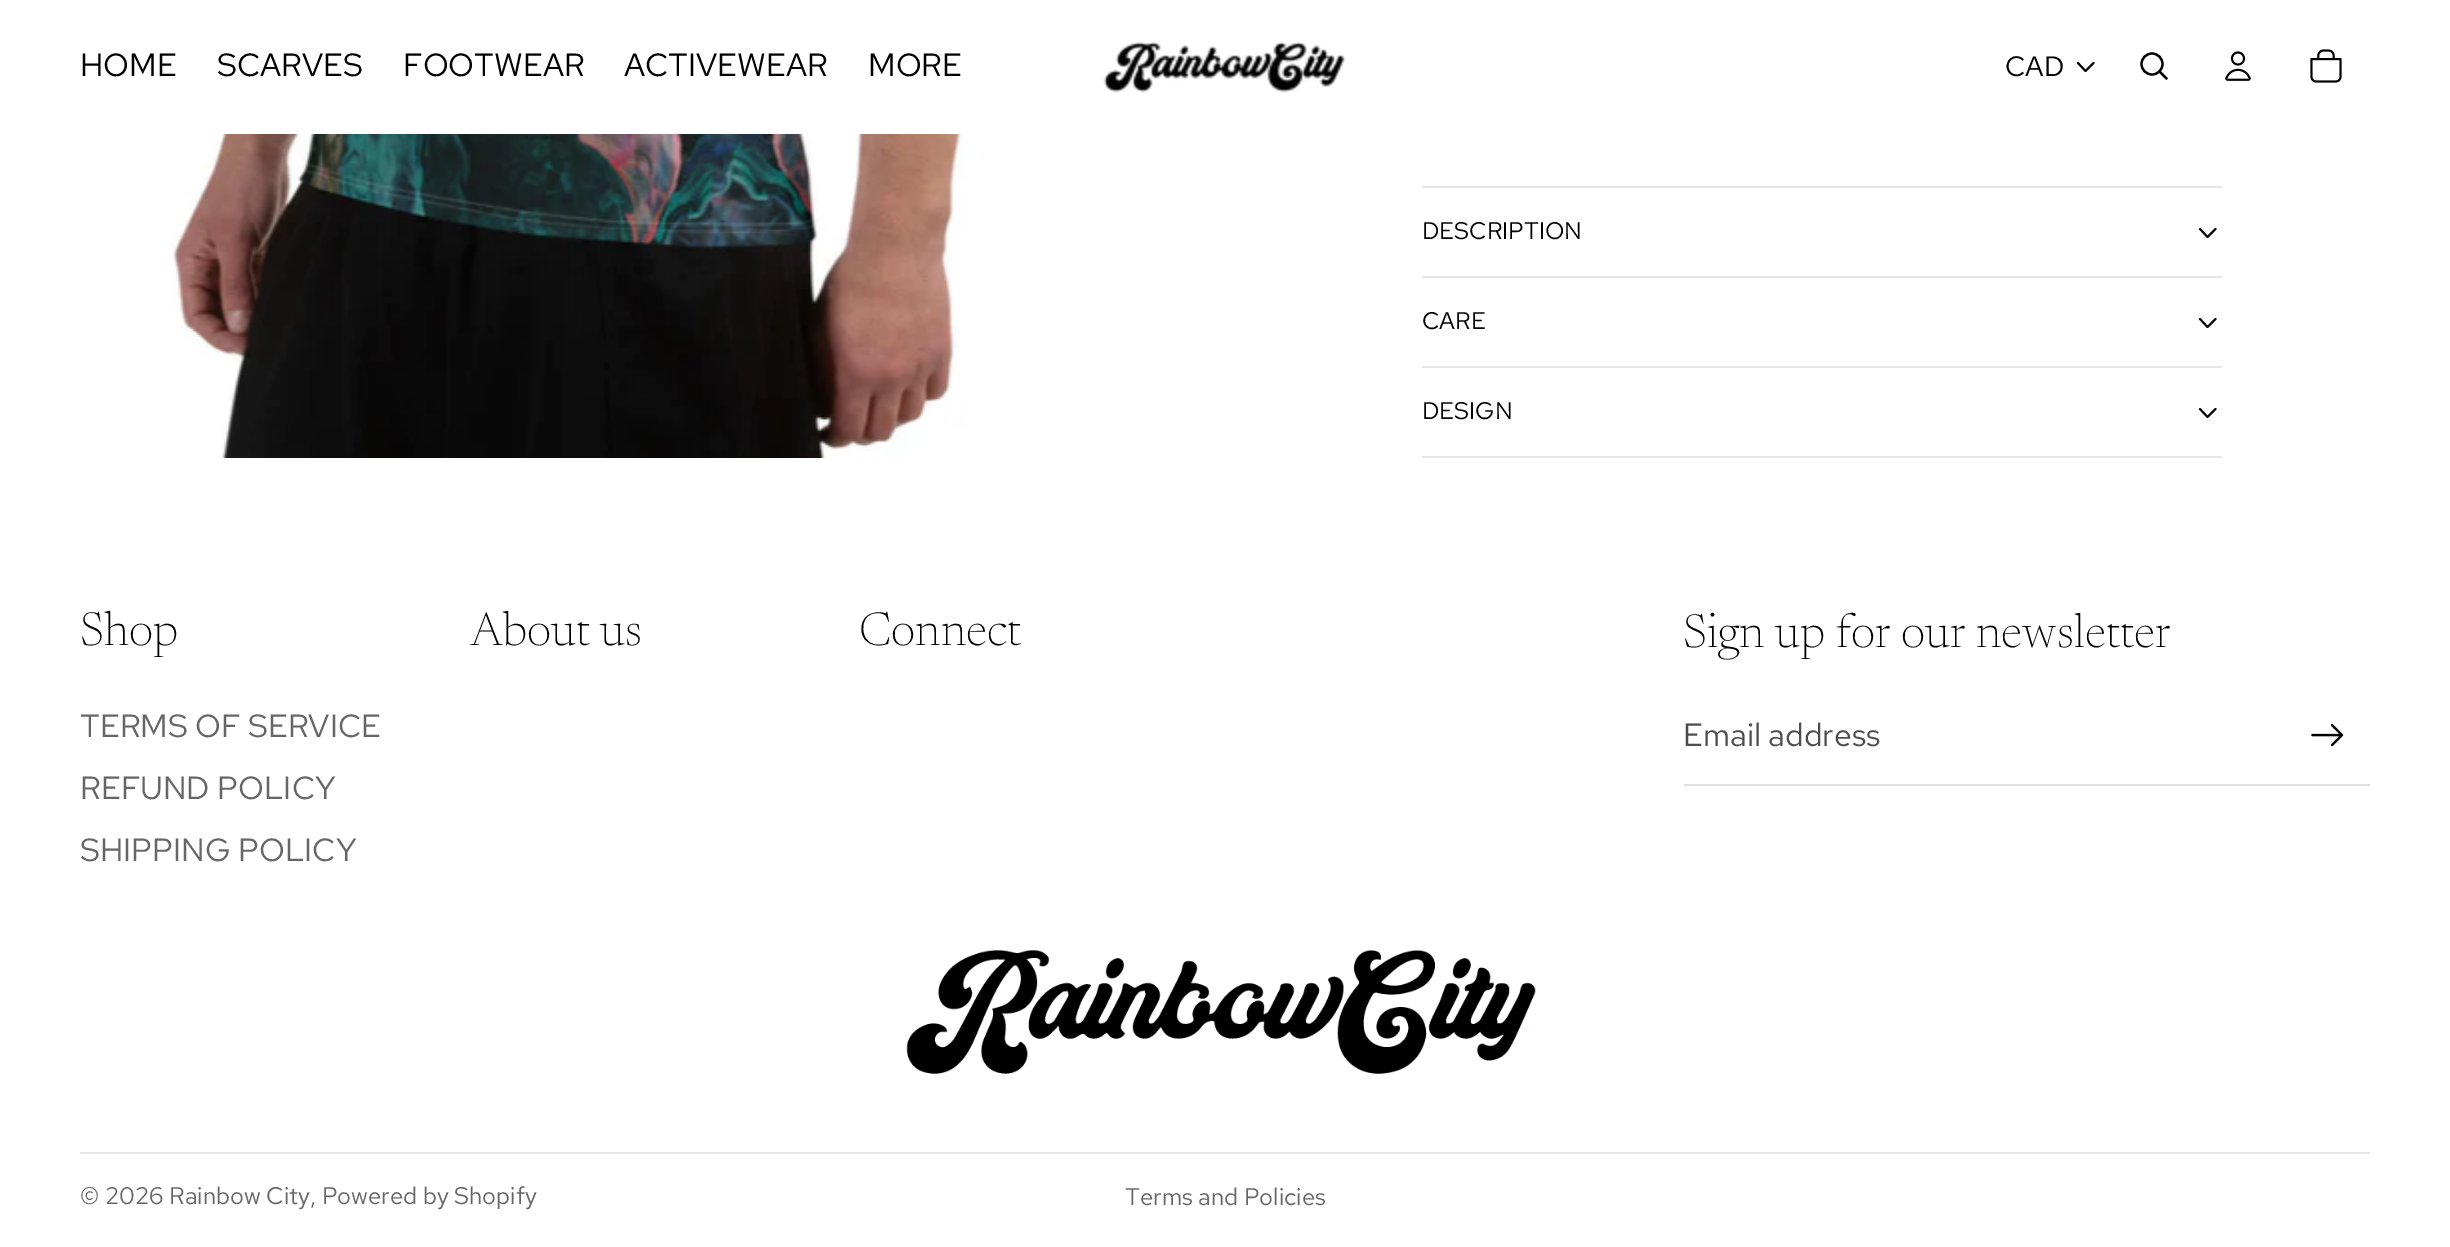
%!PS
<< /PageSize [2450 1247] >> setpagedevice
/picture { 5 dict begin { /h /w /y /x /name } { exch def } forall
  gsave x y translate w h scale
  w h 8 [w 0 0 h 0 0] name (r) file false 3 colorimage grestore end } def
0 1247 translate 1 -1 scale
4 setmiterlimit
1 setgray
0 0 2450 1247 rectfill
/RedHatText-Regular [32 0 0 -32 0 0] selectfont
0 setgray
80 76 moveto (HOME) show
217 76 moveto (SCARVES) show
403 76 moveto (FOOTWEAR) show
624 76 moveto (ACTIVEWEAR) show
868 76 moveto (MORE) show
(img1.rgb) 1103 41 242 52 picture
/RedHatText-Regular [28 0 0 -28 0 0] selectfont
2005 76 moveto (CAD) show
1.9 setlinewidth
1 setlinecap
1 setlinejoin
newpath 2093.5 63 moveto 2085.5 71 lineto 2078 63 lineto stroke
2.2 setlinewidth
0 setlinecap
0 setlinejoin
newpath 2152 64 10.5 0 360 arc closepath stroke
1 setlinecap
1 setlinejoin
newpath 2159.5 71.5 moveto 2166.5 78.5 lineto stroke
(img2.rgb) 2225 51 26 30 picture
(img3.rgb) 2310 49 32 34 picture
(img4.rgb) 171 134 815 324 picture
0.902 setgray
1422 186 800 2 rectfill
/RedHatText-Regular [24 0 0 -24 0 0] selectfont
0 setgray
1422 239 moveto (DESCRIPTION) show
1.9 setlinewidth
newpath 2215.5 229 moveto 2207.5 237 lineto 2200 229 lineto stroke
0.902 setgray
1422 276 800 2 rectfill
0 setgray
1422 329 moveto (CARE) show
newpath 2215.5 319 moveto 2207.5 327 lineto 2200 319 lineto stroke
0.902 setgray
1422 366 800 2 rectfill
1422 456 800 2 rectfill
0 setgray
1422 419 moveto (DESIGN) show
newpath 2215.5 409 moveto 2207.5 417 lineto 2200 409 lineto stroke
/Newsreader-ExtraLight [48 0 0 -48 0 0] selectfont
80 645 moveto (Shop) show
/RedHatText-Regular [32 0 0 -32 0 0] selectfont
0.4 setgray
80 737 moveto (TERMS OF SERVICE) show
80 799 moveto (REFUND POLICY) show
80 861 moveto (SHIPPING POLICY) show
/Newsreader-ExtraLight [48 0 0 -48 0 0] selectfont
0 setgray
470 645 moveto (About us) show
859 645 moveto (Connect) show
1683 647 moveto (Sign up for our newsletter) show
0.871 setgray
1684 784 686 2 rectfill
/RedHatText-Regular [32 0 0 -32 0 0] selectfont
0.302 setgray
1683 746 moveto (Email address) show
(img5.rgb) 2311 724 33 23 picture
(img6.rgb) 906 950 630 124 picture
0.902 setgray
80 1152 2290 2 rectfill
/RedHatText-Regular [24 0 0 -24 0 0] selectfont
0.4 setgray
80 1204 moveto (© 2026 Rainbow City, Powered by Shopify) show
1125 1205 moveto (Terms and Policies) show
showpage
